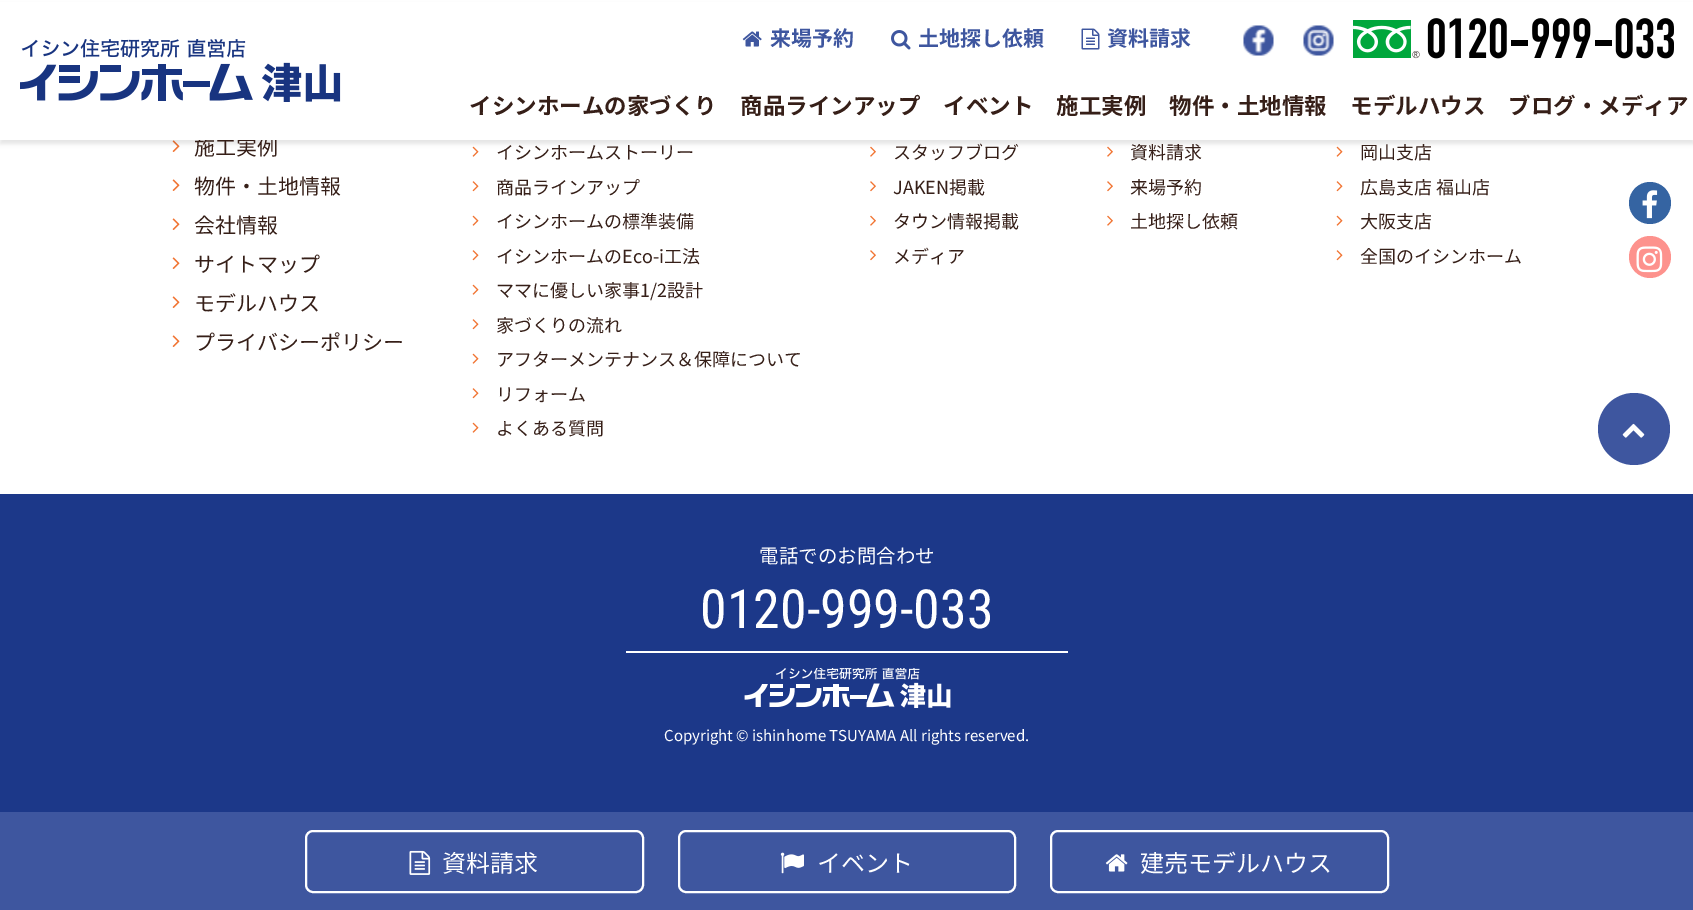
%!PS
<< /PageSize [1693 910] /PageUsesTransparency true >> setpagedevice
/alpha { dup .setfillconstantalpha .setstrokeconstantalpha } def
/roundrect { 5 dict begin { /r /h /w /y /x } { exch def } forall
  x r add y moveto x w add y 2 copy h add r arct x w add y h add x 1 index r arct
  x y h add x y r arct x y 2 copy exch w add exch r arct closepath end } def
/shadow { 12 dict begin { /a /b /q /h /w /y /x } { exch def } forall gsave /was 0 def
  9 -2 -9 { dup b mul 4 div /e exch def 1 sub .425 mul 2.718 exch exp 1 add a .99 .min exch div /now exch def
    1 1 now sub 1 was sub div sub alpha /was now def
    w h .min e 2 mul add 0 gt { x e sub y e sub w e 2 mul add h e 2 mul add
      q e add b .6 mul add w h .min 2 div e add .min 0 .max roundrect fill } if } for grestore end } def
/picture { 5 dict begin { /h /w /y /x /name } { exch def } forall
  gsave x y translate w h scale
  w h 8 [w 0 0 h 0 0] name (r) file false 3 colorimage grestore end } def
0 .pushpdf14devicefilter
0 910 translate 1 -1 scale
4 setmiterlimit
1 setgray
0 0 1693 910 rectfill
(img8.rgb) 172 140 8 12 picture
(img9.rgb) 472 146 7 11 picture
(img11.rgb) 870 146 6 11 picture
(img11.rgb) 1107 146 6 11 picture
(img9.rgb) 1336 146 7 11 picture
0 setgray
0 5 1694 139 0 2 0.1 shadow
/NotoSansJP-Regular [21 0 0 -21 0 0] selectfont
0.212 0.122 0.094 setrgbcolor
194 155 moveto (施工実例) show
1 setgray
0 2 1693 138 rectfill
(img1.rgb) 20 39 321 63 picture
(img2.rgb) 742 31 20 16 picture
/NotoSansJP-Bold [21 0 0 -21 0 0] selectfont
0.243 0.337 0.624 setrgbcolor
770 46 moveto (来場予約) show
(img3.rgb) 891 30 20 20 picture
918 46 moveto (土地探し依頼) show
(img4.rgb) 1081 28 19 22 picture
1107 46 moveto (資料請求) show
(img5.rgb) 1243 25 31 31 picture
(img6.rgb) 1303 25 31 31 picture
(img7.rgb) 1353 18 321 41 picture
/NotoSansJP-Bold [22.5 0 0 -22.5 0 0] selectfont
0.212 0.122 0.094 setrgbcolor
469 114 moveto (イシンホームの家づくり) show
740 114 moveto (商品ラインアップ) show
943 114 moveto (イベント) show
1056 114 moveto (施工実例) show
1169 114 moveto (物件・土地情報) show
1350 114 moveto (モデルハウス) show
1508 114 moveto (ブログ・メディア) show
(img8.rgb) 172 179 8 12 picture
/NotoSansJP-Regular [21 0 0 -21 0 0] selectfont
194 194 moveto (物件・土地情報) show
(img8.rgb) 172 218 8 12 picture
194 233 moveto (会社情報) show
(img8.rgb) 172 257 8 12 picture
194 272 moveto (サイトマップ) show
(img8.rgb) 172 296 8 12 picture
194 311 moveto (モデルハウス) show
(img8.rgb) 172 335 8 12 picture
194 350 moveto (プライバシーポリシー) show
/NotoSansJP-Regular [18 0 0 -18 0 0] selectfont
496 159 moveto (イシンホームストーリー) show
(img10.rgb) 472 181 7 11 picture
496 194 moveto (商品ラインアップ) show
(img9.rgb) 472 215 7 11 picture
496 228 moveto (イシンホームの標準装備) show
(img10.rgb) 472 250 7 11 picture
496 263 moveto (イシンホームのEco-i工法) show
(img9.rgb) 472 284 7 11 picture
496 297 moveto (ママに優しい家事1/2設計) show
(img10.rgb) 472 319 7 11 picture
496 332 moveto (家づくりの流れ) show
(img9.rgb) 472 353 7 11 picture
496 366 moveto (アフターメンテナンス＆保障について) show
(img10.rgb) 472 388 7 11 picture
496 401 moveto (リフォーム) show
(img9.rgb) 472 422 7 11 picture
496 435 moveto (よくある質問) show
893 159 moveto (スタッフブログ) show
(img12.rgb) 870 181 6 11 picture
893 194 moveto (JAKEN掲載) show
(img11.rgb) 870 215 6 11 picture
893 228 moveto (タウン情報掲載) show
(img12.rgb) 870 250 6 11 picture
893 263 moveto (メディア) show
1130 159 moveto (資料請求) show
(img12.rgb) 1107 181 6 11 picture
1130 194 moveto (来場予約) show
(img11.rgb) 1107 215 6 11 picture
1130 228 moveto (土地探し依頼) show
1360 159 moveto (岡山支店) show
(img10.rgb) 1336 181 7 11 picture
1360 194 moveto (広島支店 福山店) show
(img9.rgb) 1336 215 7 11 picture
1360 228 moveto (大阪支店) show
(img10.rgb) 1336 250 7 11 picture
1360 263 moveto (全国のイシンホーム) show
0.243 0.337 0.624 setrgbcolor
newpath 1634 429 36 0 360 arc closepath fill
(img13.rgb) 1622 423 23 15 picture
0.11 0.22 0.537 setrgbcolor
0 494 1693 318 rectfill
1 setgray
626 651 442 2 rectfill
/NotoSansJP-Regular [19.5 0 0 -19.5 0 0] selectfont
759 563 moveto (電話でのお問合わせ) show
/RobotoCondensed-Regular [54 0 0 -54 0 0] selectfont
700 628 moveto (0120-999-033) show
(img14.rgb) 744 668 207 40 picture
/NotoSansJP-Regular [15 0 0 -15 0 0] selectfont
664 741 moveto (Copyright © ishinhome TSUYAMA All rights reserved.) show
0.208 0.392 0.635 setrgbcolor
newpath 1650 203 21 0 360 arc closepath fill
(img15.rgb) 1642 190 16 29 picture
0.992 0.573 0.553 setrgbcolor
newpath 1650 257 21 0 360 arc closepath fill
(img16.rgb) 1636 246 27 27 picture
0.243 0.337 0.624 setrgbcolor
0 812 1693 98 rectfill
1 setgray
2 setlinewidth
306 831 337 61 7 roundrect stroke
(img17.rgb) 409 850 22 25 picture
/NotoSansJP-Regular [24 0 0 -24 0 0] selectfont
442 872 moveto (資料請求) show
679 831 336 61 7 roundrect stroke
(img18.rgb) 780 852 24 22 picture
817 872 moveto (イベント) show
1051 831 337 61 7 roundrect stroke
(img19.rgb) 1105 854 23 18 picture
1140 872 moveto (建売モデルハウス) show
.poppdf14devicefilter showpage
